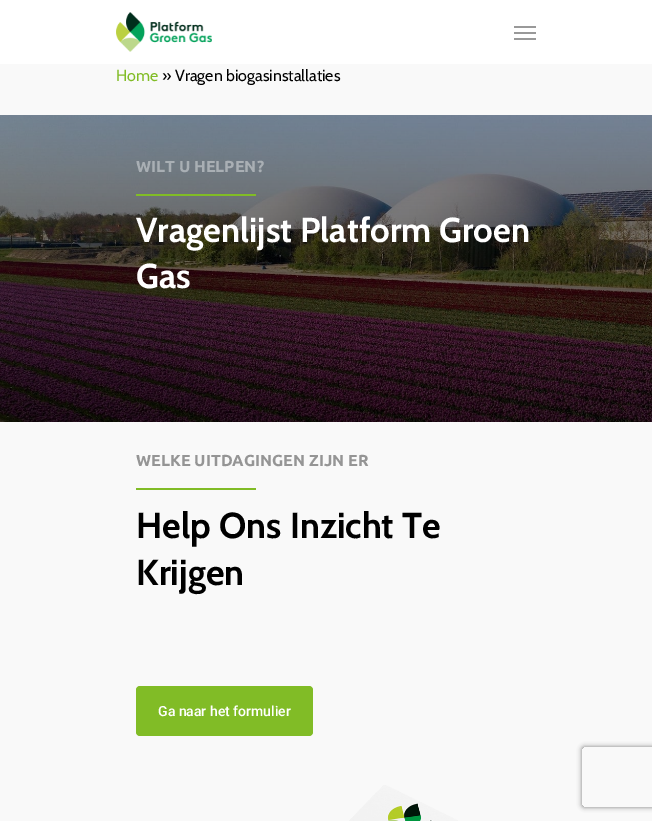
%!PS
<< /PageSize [652 821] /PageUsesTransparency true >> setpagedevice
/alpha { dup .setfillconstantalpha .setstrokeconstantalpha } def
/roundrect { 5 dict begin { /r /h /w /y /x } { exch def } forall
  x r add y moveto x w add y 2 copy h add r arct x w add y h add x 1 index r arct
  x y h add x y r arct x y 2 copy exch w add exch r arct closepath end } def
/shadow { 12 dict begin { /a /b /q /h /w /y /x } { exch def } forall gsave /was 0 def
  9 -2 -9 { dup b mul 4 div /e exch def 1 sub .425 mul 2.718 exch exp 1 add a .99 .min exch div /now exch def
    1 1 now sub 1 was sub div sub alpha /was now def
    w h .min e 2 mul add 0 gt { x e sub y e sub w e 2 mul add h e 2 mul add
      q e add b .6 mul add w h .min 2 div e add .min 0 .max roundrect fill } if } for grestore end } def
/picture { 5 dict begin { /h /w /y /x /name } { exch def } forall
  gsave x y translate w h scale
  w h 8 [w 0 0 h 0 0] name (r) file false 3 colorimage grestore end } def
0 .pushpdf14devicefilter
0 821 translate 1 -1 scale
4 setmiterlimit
0.976 setgray
0 0 652 821 rectfill
1 setgray
0 0 652 64 rectfill
(img1.rgb) 116 12 96 40 picture
0.6 setgray
514 26 22 2 rectfill
514 38 22 2 rectfill
514 32 22 2 rectfill
/Cabin-Regular [16 0 0 -16 0 0] selectfont
0.506 0.737 0.149 setrgbcolor
116 81 moveto (Home) show
0 setgray
162 81 moveto (» Vragen biogasinstallaties) show
(img2.rgb) 0 115 652 307 picture
/Ubuntu-Bold [16 0 0 -16 0 0] selectfont
0.663 0.686 0.706 setrgbcolor
136 172 moveto (WILT U HELPEN?) show
0.506 0.737 0.149 setrgbcolor
136 194 120 2 rectfill
/Cabin-Bold [34.5 0 0 -34.5 0 0] selectfont
1 setgray
136 242 moveto (Vragenlijst Platform Groen) show
136 288 moveto (Gas) show
/Ubuntu-Bold [16 0 0 -16 0 0] selectfont
0.584 setgray
136 466 moveto (WELKE UITDAGINGEN ZIJN ER) show
0.506 0.737 0.149 setrgbcolor
136 488 120 2 rectfill
/Cabin-Bold [36 0 0 -36 0 0] selectfont
0 setgray
136 538 moveto (Help Ons Inzicht Te) show
136 585 moveto (Krijgen) show
0.506 0.737 0.149 setrgbcolor
136 686 177 50 4 roundrect fill
/Roboto-Medium [14 0 0 -14 0 0] selectfont
1 setgray
158 716 moveto (Ga naar het formulier) show
(img3.rgb) 349 785 109 36 picture
gsave
newpath 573 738 moveto 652 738 lineto 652 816 lineto 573 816 lineto closepath 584 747 moveto 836 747 lineto 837 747 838 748 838 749 curveto 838 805 lineto 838 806 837 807 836 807 curveto 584 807 lineto 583 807 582 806 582 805 curveto 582 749 lineto 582 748 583 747 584 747 curveto closepath eoclip newpath
0.502 setgray
582 747 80 60 2 2.5 1 shadow
grestore
.poppdf14devicefilter showpage
